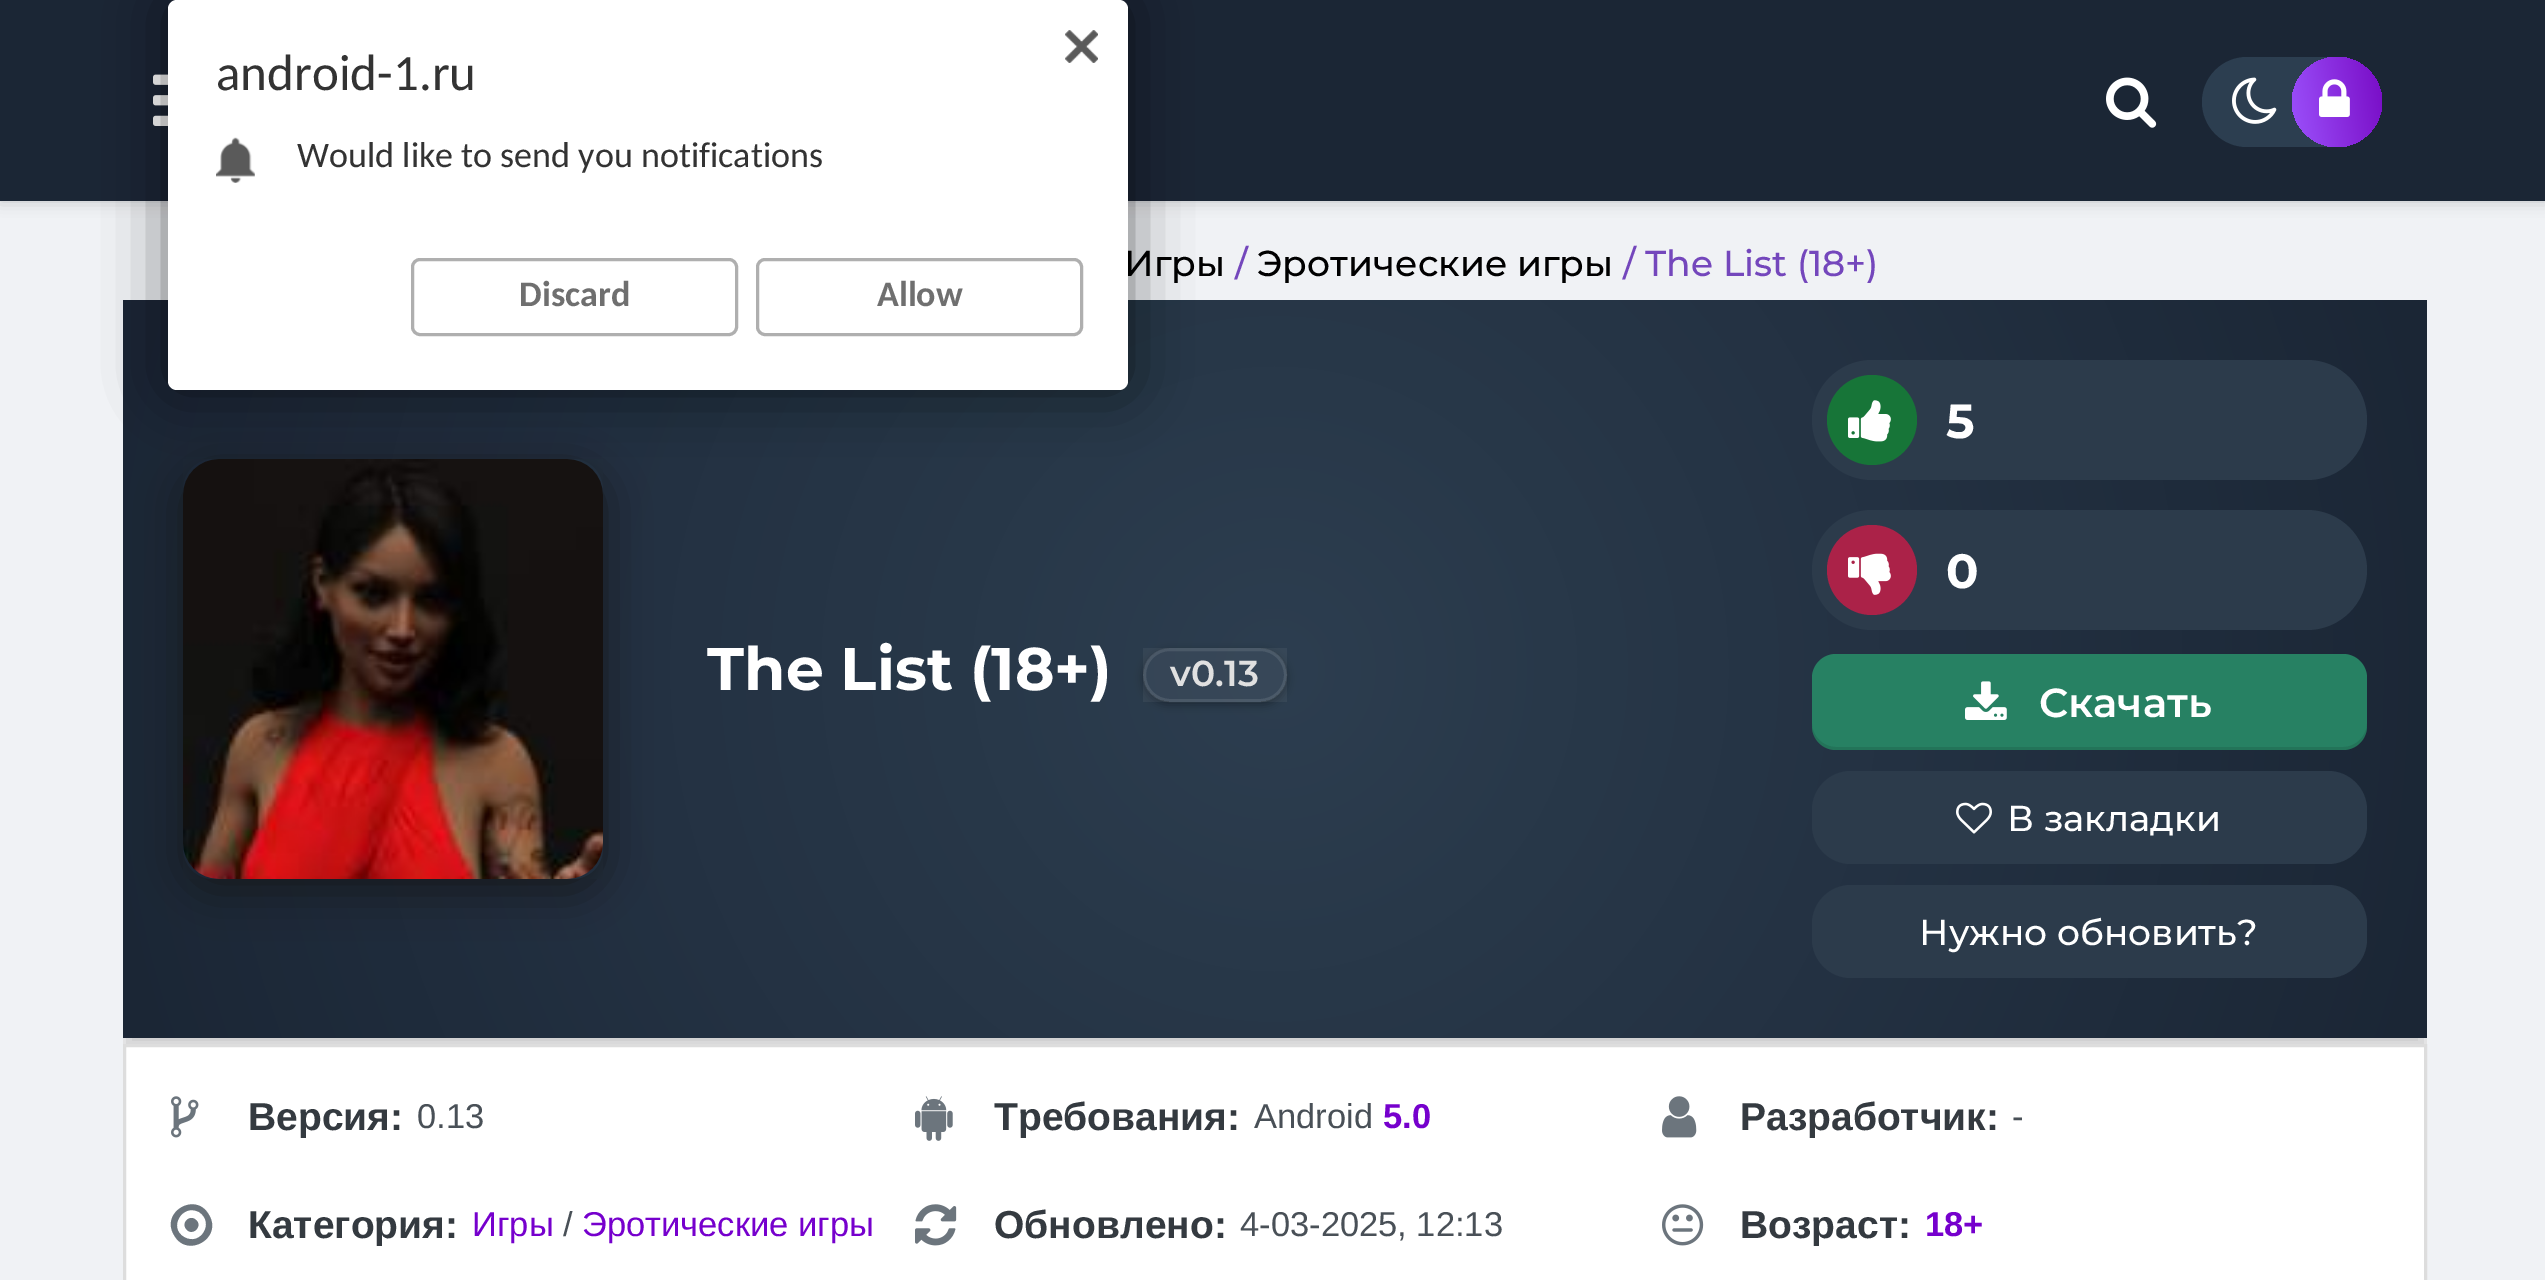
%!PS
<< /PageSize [2545 1280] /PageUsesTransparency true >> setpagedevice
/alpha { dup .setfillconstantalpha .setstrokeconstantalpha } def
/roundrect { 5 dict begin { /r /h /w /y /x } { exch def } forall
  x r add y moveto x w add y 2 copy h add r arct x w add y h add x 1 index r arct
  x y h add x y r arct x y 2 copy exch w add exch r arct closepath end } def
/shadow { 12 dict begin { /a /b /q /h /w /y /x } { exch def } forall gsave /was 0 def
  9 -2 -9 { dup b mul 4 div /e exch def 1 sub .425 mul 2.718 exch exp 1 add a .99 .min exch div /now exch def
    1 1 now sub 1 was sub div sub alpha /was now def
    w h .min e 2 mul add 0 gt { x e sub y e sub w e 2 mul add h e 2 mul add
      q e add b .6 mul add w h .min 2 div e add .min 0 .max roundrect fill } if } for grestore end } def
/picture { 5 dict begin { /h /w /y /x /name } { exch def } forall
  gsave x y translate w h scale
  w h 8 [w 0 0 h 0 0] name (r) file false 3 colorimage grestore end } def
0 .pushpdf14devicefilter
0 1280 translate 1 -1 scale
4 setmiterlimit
0.941 0.949 0.961 setrgbcolor
0 0 2545 1280 rectfill
0 setgray
0 0 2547 201 0 7.5 0.2 shadow
0.106 0.149 0.208 setrgbcolor
0 0 2545 201 rectfill
(img3.rgb) 153 74 15 52 picture
0.992 0.992 0.996 setrgbcolor
123 1038 2304 6 rectfill
gsave
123 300 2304 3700 rectclip
0 setgray
123 312 2304 738 0 12 0.2 shadow
grestore
gsave newpath 123 300 moveto 2427 300 lineto 2427 1038 lineto 123 1038 lineto closepath clip newpath 1275 669 translate 1210 1210 scale
<< /ShadingType 3 /ColorSpace /DeviceRGB /Coords [0 0 0 0 0 1] /Extend [true true] /Function << /FunctionType 2 /Domain [0 1] /C0 [0.176 0.243 0.314] /C1 [0.106 0.149 0.208] /N 1 >> >> shfill grestore
gsave
newpath 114 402 moveto 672 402 lineto 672 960 lineto 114 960 lineto closepath 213 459 moveto 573 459 lineto 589.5 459 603 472.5 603 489 curveto 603 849 lineto 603 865.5 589.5 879 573 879 curveto 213 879 lineto 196.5 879 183 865.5 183 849 curveto 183 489 lineto 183 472.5 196.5 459 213 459 curveto closepath eoclip newpath
0.086 0.098 0.11 setrgbcolor
183 471 420 420 30 22.5 1 shadow
grestore
(img7.rgb) 183 459 420 420 picture
0 setgray
168 0 960 390 9 30 0.54 shadow
1 setgray
168 0 960 390 9 roundrect fill
(img1.rgb) 1065 30 33 33 picture
/Carlito-Regular [51 0 0 -51 0 0] selectfont
0.2 setgray
216 90 moveto (android-1.ru) show
(img2.rgb) 216 137 39 46 picture
/Carlito-Regular [36 0 0 -36 0 0] selectfont
297 167 moveto (Would like to send you notifications) show
0.686 setgray
3 setlinewidth
412.5 259.5 324 75 7.5 roundrect stroke
/Carlito-Bold [36 0 0 -36 0 0] selectfont
0.435 setgray
519 306 moveto (Discard) show
0.686 setgray
757.5 259.5 324 75 7.5 roundrect stroke
0.435 setgray
877 306 moveto (Allow) show
(img4.rgb) 2106 77 51 51 picture
0.173 0.243 0.314 setrgbcolor
2202 57 165 90 45 roundrect fill
(img5.rgb) 2232 77 45 47 picture
gsave newpath 2337 102 45 0 360 arc closepath clip newpath
<< /ShadingType 2 /ColorSpace /DeviceRGB /Coords [2388 94 2286 110] /Extend [true true] /Function << /FunctionType 3 /Domain [0 1] /Functions [<< /FunctionType 2 /Domain [0 1] /C0 [0.471 0.047 0.773] /C1 [0.604 0.306 0.976] /N 1 >> << /FunctionType 2 /Domain [0 1] /C0 [0.604 0.306 0.976] /C1 [0.604 0.306 0.976] /N 1 >>] /Bounds [0.96] /Encode [0 1 0 1] >> >> shfill grestore
(img6.rgb) 2319 79 31 38 picture
/Montserrat-Medium [36 0 0 -36 0 0] selectfont
0 setgray
1124 276 moveto (Игры) show
0.455 0.278 0.737 setrgbcolor
1235 276 moveto (/) show
0 setgray
1257 276 moveto (Эротические игры) show
0.455 0.278 0.737 setrgbcolor
1623 276 moveto (/ The List \(18+\)) show
/Montserrat-Bold [60 0 0 -60 0 0] selectfont
1 setgray
707 690 moveto (The List \(18+\)) show
gsave
newpath 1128 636 moveto 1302 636 lineto 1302 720 lineto 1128 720 lineto closepath 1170 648 moveto 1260 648 lineto 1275 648 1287 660 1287 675 curveto 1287 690 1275 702 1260 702 curveto 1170 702 lineto 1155 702 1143 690 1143 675 curveto 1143 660 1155 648 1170 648 curveto closepath eoclip newpath
0 setgray
1143 651 144 54 27 4.5 0.3 shadow
grestore
0.05 alpha
1143 648 144 54 rectfill
0.1 alpha
1144.5 649.5 141 51 25.5 roundrect stroke
/Montserrat-SemiBold [36 0 0 -36 0 0] selectfont
1 alpha
0.878 setgray
1170 686 moveto (v0.13) show
0.173 0.231 0.294 setrgbcolor
1812 360 555 120 60 roundrect fill
0.09 0.459 0.22 setrgbcolor
newpath 1872 420 45 0 360 arc closepath fill
(img8.rgb) 1848 400 43 42 picture
/Montserrat-Bold [48 0 0 -48 0 0] selectfont
1 setgray
1946 438 moveto (5) show
0.173 0.231 0.294 setrgbcolor
1812 510 555 120 60 roundrect fill
0.671 0.133 0.282 setrgbcolor
newpath 1872 570 45 0 360 arc closepath fill
(img9.rgb) 1848 553 43 42 picture
1 setgray
1946 588 moveto (0) show
0.153 0.506 0.388 setrgbcolor
1812 654 555 96 24 roundrect fill
0.1 alpha
0 setgray
newpath 1812 723 moveto 1812 726 lineto 1812 739 1823 750 1836 750 curveto 2343 750 lineto 2356 750 2367 739 2367 726 curveto 2367 723 lineto 2367 736 2356 747 2343 747 curveto 1836 747 lineto 1823 747 1812 736 1812 723 curveto closepath fill
1 alpha
(img10.rgb) 1965 681 42 39 picture
/Montserrat-SemiBold [40.5 0 0 -40.5 0 0] selectfont
1 setgray
2039 717 moveto (Скачать) show
0.173 0.231 0.294 setrgbcolor
1812 771 555 93 39 roundrect fill
(img11.rgb) 1956 802 36 32 picture
/Montserrat-Medium [36 0 0 -36 0 0] selectfont
1 setgray
2007 831 moveto (В закладки) show
0.173 0.231 0.294 setrgbcolor
1812 885 555 93 39 roundrect fill
1 setgray
1919 945 moveto (Нужно обновить?) show
newpath 124.5 1045.5 moveto 2425.5 1045.5 lineto 2425.5 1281.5 lineto 124.5 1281.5 lineto closepath gsave fill grestore
0.867 setgray
stroke
(img12.rgb) 171 1096 28 42 picture
/LiberationSans-Bold [39 0 0 -39 0 0] selectfont
0.204 0.227 0.251 setrgbcolor
248 1130 moveto (Версия:) show
/LiberationSans-Regular [34.5 0 0 -34.5 0 0] selectfont
0.286 0.314 0.341 setrgbcolor
417 1128 moveto (0.13) show
(img13.rgb) 915 1096 38 45 picture
/LiberationSans-Bold [39 0 0 -39 0 0] selectfont
0.204 0.227 0.251 setrgbcolor
994 1130 moveto (Требования:) show
/LiberationSans-Regular [34.5 0 0 -34.5 0 0] selectfont
0.286 0.314 0.341 setrgbcolor
1254 1128 moveto (Android) show
/LiberationSans-Bold [34.5 0 0 -34.5 0 0] selectfont
0.463 0 0.804 setrgbcolor
1383 1128 moveto (5.0) show
(img14.rgb) 1662 1096 35 42 picture
/LiberationSans-Bold [39 0 0 -39 0 0] selectfont
0.204 0.227 0.251 setrgbcolor
1740 1130 moveto (Разработчик:) show
/LiberationSans-Regular [34.5 0 0 -34.5 0 0] selectfont
0.286 0.314 0.341 setrgbcolor
2012 1128 moveto (-) show
0.424 0.459 0.49 setrgbcolor
newpath 196 1220 moveto 203 1226 193 1236 187 1230 curveto 180 1223 190 1214 196 1220 curveto closepath 199 1212 moveto 182 1203 168 1228 184 1237 curveto 201 1247 215 1222 199 1212 curveto closepath 209 1215 moveto 223 1238 187 1259 174 1235 curveto 160 1212 196 1191 209 1215 curveto closepath fill
/LiberationSans-Bold [39 0 0 -39 0 0] selectfont
0.204 0.227 0.251 setrgbcolor
248 1238 moveto (Категория:) show
/LiberationSans-Regular [34.5 0 0 -34.5 0 0] selectfont
0.463 0 0.804 setrgbcolor
472 1236 moveto (Игры) show
0.286 0.314 0.341 setrgbcolor
563 1236 moveto (/) show
0.463 0 0.804 setrgbcolor
582 1236 moveto (Эротические игры) show
(img15.rgb) 915 1204 42 42 picture
/LiberationSans-Bold [39 0 0 -39 0 0] selectfont
0.204 0.227 0.251 setrgbcolor
994 1238 moveto (Обновлено:) show
/LiberationSans-Regular [34.5 0 0 -34.5 0 0] selectfont
0.286 0.314 0.341 setrgbcolor
1240 1236 moveto (4-03-2025, 12:13) show
(img16.rgb) 1662 1204 42 42 picture
/LiberationSans-Bold [39 0 0 -39 0 0] selectfont
0.204 0.227 0.251 setrgbcolor
1740 1238 moveto (Возраст:) show
/LiberationSans-Bold [34.5 0 0 -34.5 0 0] selectfont
0.463 0 0.804 setrgbcolor
1925 1236 moveto (18+) show
.poppdf14devicefilter showpage
